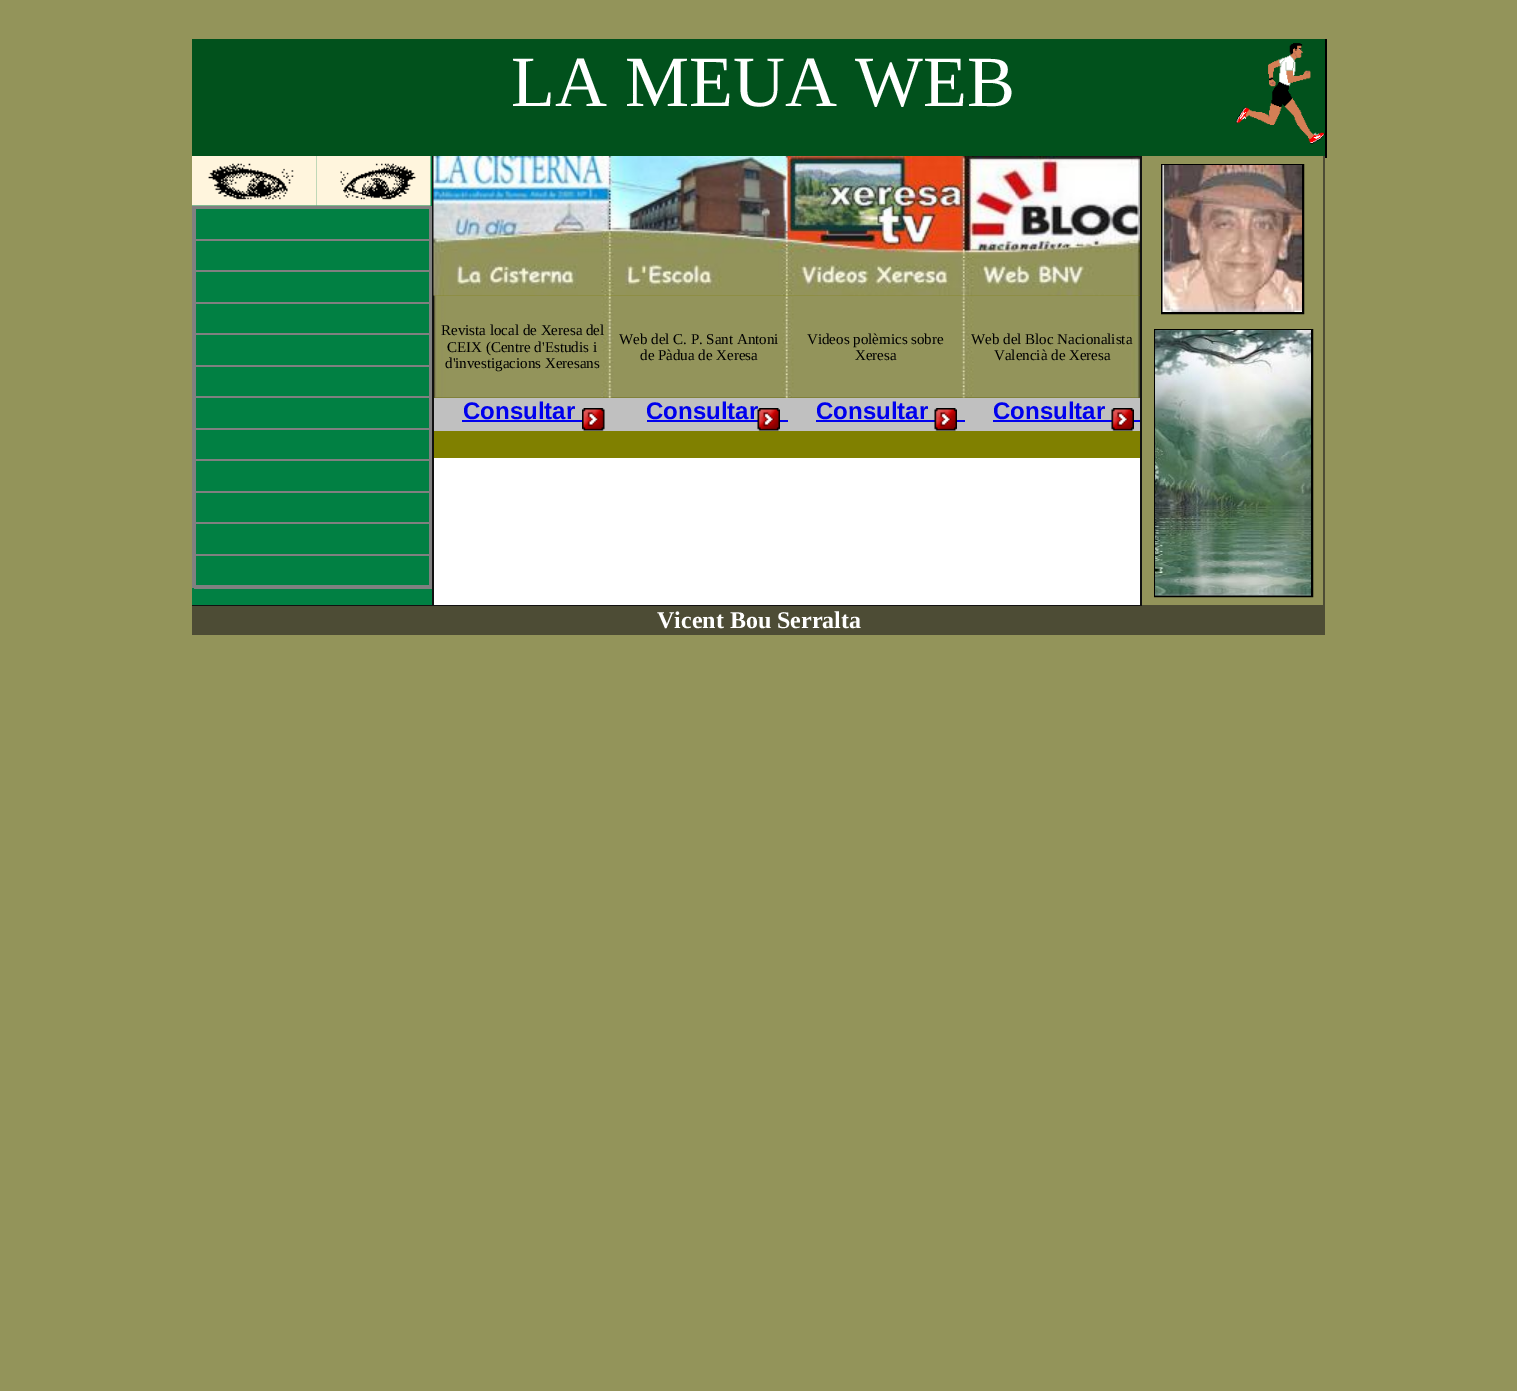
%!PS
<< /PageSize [1517 1391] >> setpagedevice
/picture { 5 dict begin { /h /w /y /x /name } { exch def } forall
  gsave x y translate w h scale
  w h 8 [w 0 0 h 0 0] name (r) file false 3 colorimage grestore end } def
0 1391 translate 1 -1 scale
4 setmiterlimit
0.576 0.58 0.353 setrgbcolor
0 0 1517 1391 rectfill
0.004 0.318 0.11 setrgbcolor
192 39 1133 117 rectfill
0 setgray
1325 39 2 119 rectfill
/LiberationSerif-Regular [72 0 0 -72 0 0] selectfont
1 setgray
511 106 moveto (LA MEUA WEB) show
(img1.rgb) 1235 43 90 101 picture
0.067 setgray
192 605 240 1 rectfill
0.004 0.502 0.263 setrgbcolor
192 156 240 449 rectfill
(img2.rgb) 192 156 125 50 picture
(img3.rgb) 316 156 115 50 picture
0.502 setgray
194 239 238 2 rectfill
194 270 238 2 rectfill
194 302 238 2 rectfill
194 333 238 2 rectfill
194 365 238 2 rectfill
194 396 238 2 rectfill
194 428 238 2 rectfill
194 459 238 2 rectfill
194 491 238 2 rectfill
194 522 238 2 rectfill
194 554 238 2 rectfill
195 554 1 34 rectfill
195 522 1 33 rectfill
195 491 1 33 rectfill
195 459 1 33 rectfill
195 428 1 33 rectfill
195 396 1 33 rectfill
195 365 1 33 rectfill
195 333 1 33 rectfill
195 302 1 33 rectfill
195 270 1 33 rectfill
195 207 1 65 rectfill
192 206 240 3 rectfill
429 206 3 382 rectfill
192 585 240 3 rectfill
192 206 3 382 rectfill
194 588 238 1 rectfill
1 setgray
434 458 706 147 rectfill
0.302 0.298 0.208 setrgbcolor
1323 156 2 450 rectfill
1140 605 185 1 rectfill
0.067 setgray
1140 156 2 450 rectfill
432 605 710 1 rectfill
432 156 2 450 rectfill
0.502 0.502 0 setrgbcolor
434 295 706 163 rectfill
(img5.rgb) 434 295 706 103 picture
(img4.rgb) 433 156 707 140 picture
/LiberationSerif-Regular [15 0 0 -15 0 0] selectfont
0 setgray
441 335 moveto (Revista local de Xeresa del) show
447 352 moveto (CEIX \(Centre d'Estudis i) show
445 368 moveto (d'investigacions Xeresans) show
619 344 moveto (Web del C. P. Sant Antoni) show
640 360 moveto (de Pàdua de Xeresa) show
807 344 moveto (Videos polèmics sobre) show
855 360 moveto (Xeresa) show
971 344 moveto (Web del Bloc Nacionalista) show
994 360 moveto (Valencià de Xeresa) show
(img6.rgb) 434 397 706 1 picture
0.753 setgray
434 398 706 33 rectfill
/LiberationSans-Bold [24 0 0 -24 0 0] selectfont
0 0 0.933 setrgbcolor
463 419 moveto (Consultar) show
462 420 120 2 rectfill
(img7.rgb) 582 408 23 23 picture
646 419 moveto (Consultar) show
647 420 111 2 rectfill
780 420 8 2 rectfill
(img8.rgb) 757 408 23 23 picture
816 419 moveto (Consultar) show
816 420 119 2 rectfill
957 420 8 2 rectfill
(img9.rgb) 934 408 23 23 picture
993 419 moveto (Consultar) show
993 420 119 2 rectfill
(img9.rgb) 1111 408 23 23 picture
1134 420 6 2 rectfill
0 setgray
2 setlinewidth
1162 165 141 148 rectstroke
(img10.rgb) 1162 165 140 147 picture
1155 330 157 266 rectstroke
(img11.rgb) 1155 330 156 266 picture
0.302 0.298 0.208 setrgbcolor
192 606 1133 29 rectfill
/LiberationSerif-Bold [24 0 0 -24 0 0] selectfont
1 setgray
657 628 moveto (Vicent Bou Serralta) show
showpage
